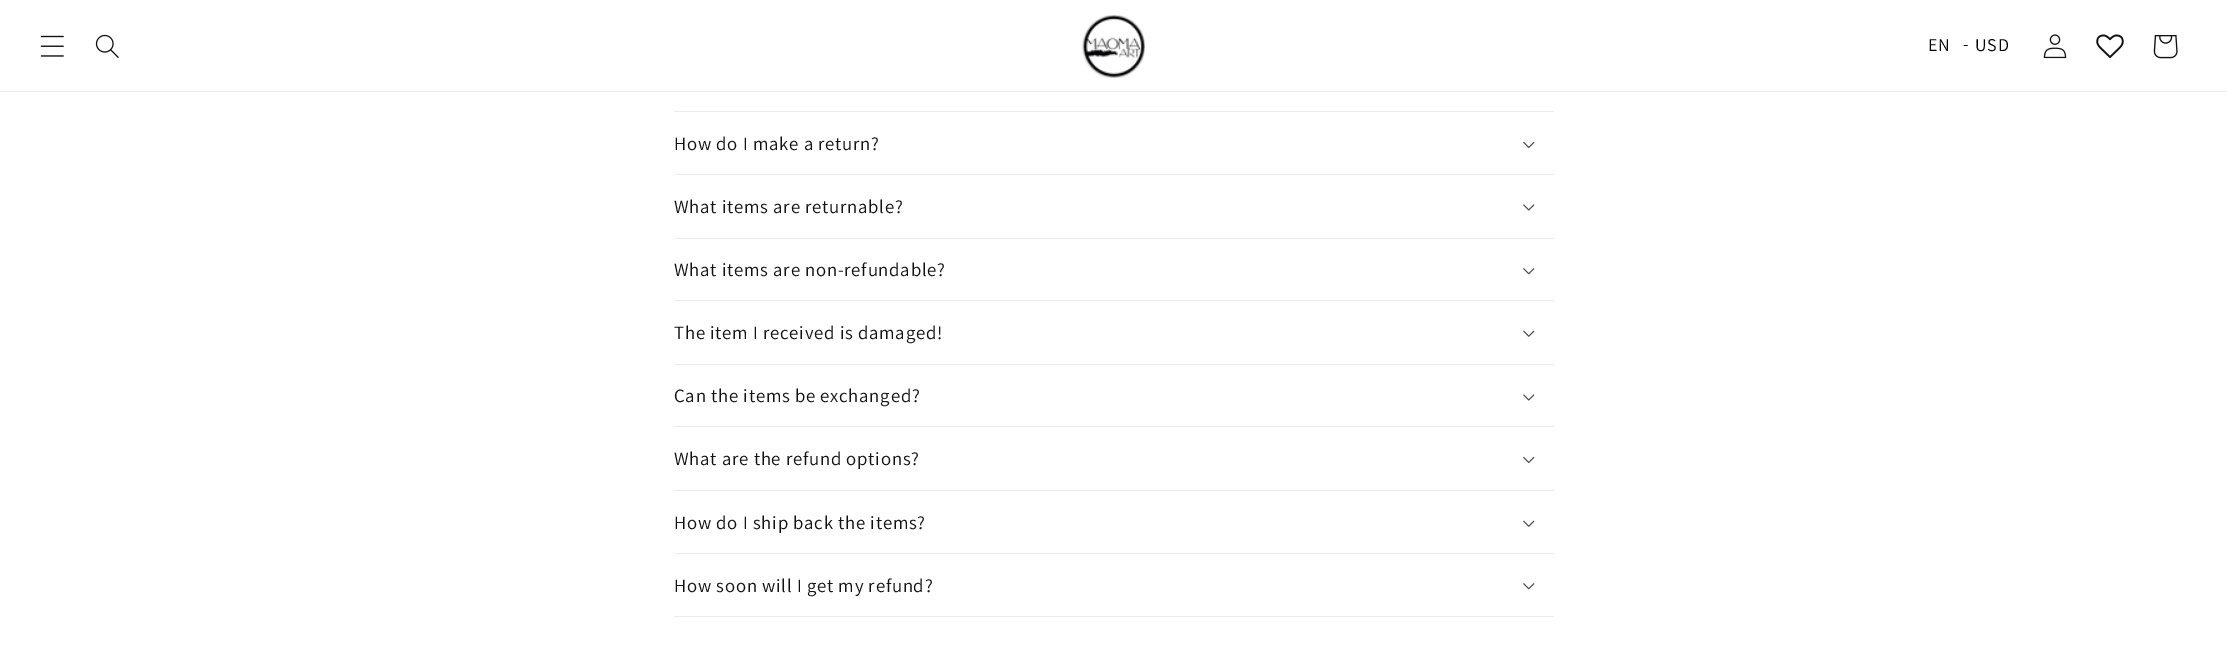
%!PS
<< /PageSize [2227 645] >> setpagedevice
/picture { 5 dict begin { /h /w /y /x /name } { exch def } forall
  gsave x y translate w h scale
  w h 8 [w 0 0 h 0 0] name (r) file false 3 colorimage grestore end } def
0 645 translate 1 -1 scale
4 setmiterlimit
1 setgray
0 0 2227 645 rectfill
0.925 setgray
0 91 2227 1 rectfill
(img1.rgb) 40 35 24 22 picture
(img2.rgb) 95 34 24 24 picture
(img3.rgb) 1082 15 63 63 picture
/Assistant-Regular [18 0 0 -18 0 0] selectfont
0 setgray
1928 51 moveto 0.75 0 (EN) ashow
1963 50 moveto 0.75 0 (-) ashow
1975 51 moveto 0.75 0 (USD) ashow
(img4.rgb) 2043 34 24 25 picture
(img5.rgb) 2096 34 28 24 picture
(img6.rgb) 2153 35 25 24 picture
0.925 setgray
674 111 880 1 rectfill
674 174 880 1 rectfill
/Assistant-Regular [18.75 0 0 -18.75 0 0] selectfont
0.071 setgray
674 150 moveto 0.75 0 (How do I make a return?) ashow
(img7.rgb) 1523 141 12 8 picture
0.925 setgray
674 238 880 1 rectfill
0.071 setgray
674 213 moveto 0.75 0 (What items are returnable?) ashow
(img8.rgb) 1523 204 12 7 picture
0.925 setgray
674 300 880 1 rectfill
0.071 setgray
674 276 moveto 0.75 0 (What items are non-refundable?) ashow
(img9.rgb) 1523 268 12 7 picture
0.925 setgray
674 364 880 1 rectfill
0.071 setgray
674 339 moveto 0.75 0 (The item I received is damaged!) ashow
(img10.rgb) 1523 330 12 7 picture
0.925 setgray
674 426 880 1 rectfill
0.071 setgray
674 402 moveto 0.75 0 (Can the items be exchanged?) ashow
(img8.rgb) 1523 394 12 7 picture
0.925 setgray
674 490 880 1 rectfill
0.071 setgray
674 465 moveto 0.75 0 (What are the refund options?) ashow
(img7.rgb) 1523 456 12 8 picture
0.925 setgray
674 553 880 1 rectfill
0.071 setgray
674 529 moveto 0.75 0 (How do I ship back the items?) ashow
(img10.rgb) 1523 520 12 7 picture
0.925 setgray
674 616 880 1 rectfill
0.071 setgray
674 592 moveto 0.75 0 (How soon will I get my refund?) ashow
(img9.rgb) 1523 583 12 7 picture
showpage
